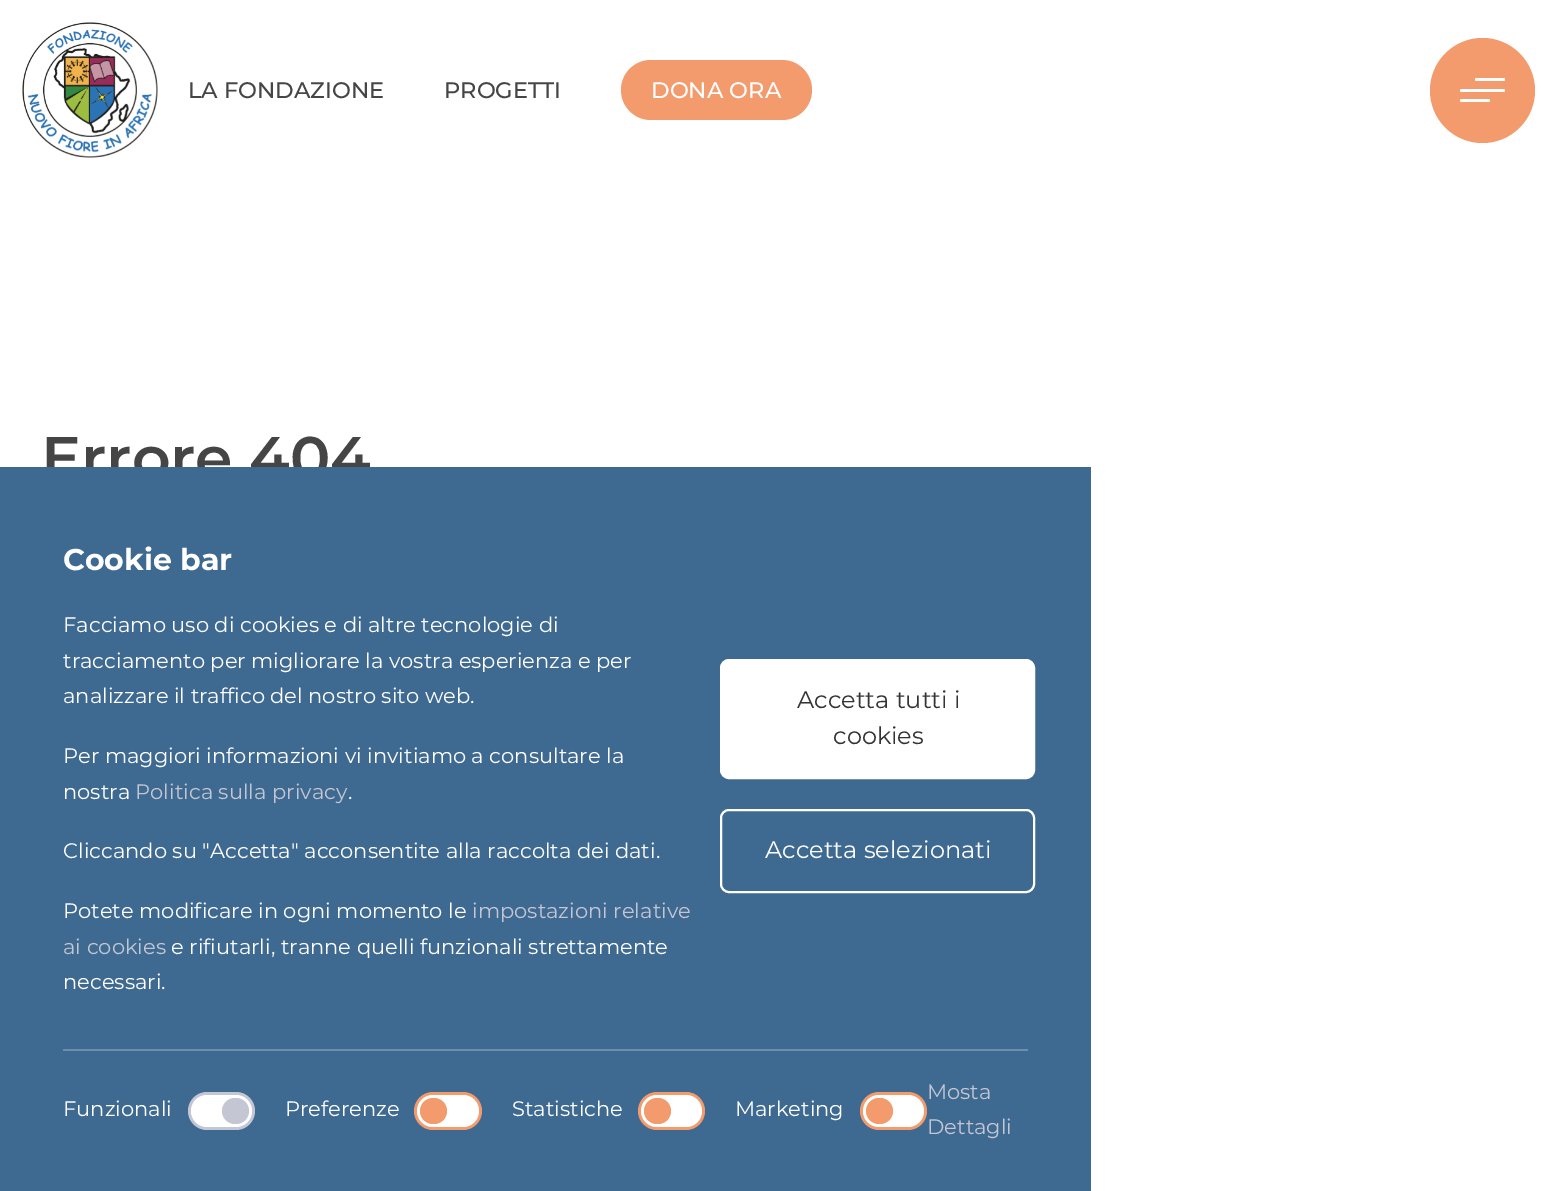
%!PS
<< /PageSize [1556 1191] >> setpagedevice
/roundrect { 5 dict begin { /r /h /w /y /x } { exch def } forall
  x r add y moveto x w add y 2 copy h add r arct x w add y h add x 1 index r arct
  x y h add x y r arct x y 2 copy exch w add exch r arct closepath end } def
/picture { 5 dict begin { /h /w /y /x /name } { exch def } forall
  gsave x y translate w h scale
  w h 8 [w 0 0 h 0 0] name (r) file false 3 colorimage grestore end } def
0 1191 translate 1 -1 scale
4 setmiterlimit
1 setgray
0 0 1556 1191 rectfill
(img1.rgb) 22 22 136 136 picture
/Montserrat-Medium [22.5 0 0 -22.5 0 0] selectfont
0.271 setgray
188 98 moveto (LA FONDAZIONE) show
444 98 moveto (PROGETTI) show
0.953 0.608 0.427 setrgbcolor
621 60 191 60 30 roundrect fill
1 setgray
651 98 moveto (DONA ORA) show
0.953 0.608 0.427 setrgbcolor
newpath 1482.5 90.5 52.5 0 360 arc closepath fill
1 setgray
1460 89 45 3 1.5 roundrect fill
1475 78 30 3 1.5 roundrect fill
1460 99 30 3 1.5 roundrect fill
/Montserrat-SemiBold [60 0 0 -60 0 0] selectfont
0.271 setgray
41 479 moveto (Errore 404) show
0.243 0.412 0.565 setrgbcolor
0 467 1091 724 rectfill
/Montserrat-Bold [30 0 0 -30 0 0] selectfont
1 setgray
63 570 moveto (Cookie bar) show
/Montserrat-Regular [21 0 0 -21 0 0] selectfont
63 632 moveto (Facciamo uso di cookies e di altre tecnologie di) show
63 668 moveto (tracciamento per migliorare la vostra esperienza e per) show
63 703 moveto (analizzare il traffico del nostro sito web.) show
63 763 moveto (Per maggiori informazioni vi invitiamo a consultare la) show
63 799 moveto (nostra) show
0.769 0.776 0.827 setrgbcolor
135 799 moveto (Politica sulla privacy) show
1 setgray
348 799 moveto (.) show
63 858 moveto (Cliccando su "Accetta" acconsentite alla raccolta dei dati.) show
63 918 moveto (Potete modificare in ogni momento le) show
0.769 0.776 0.827 setrgbcolor
472 918 moveto (impostazioni relative) show
63 954 moveto (ai cookies) show
1 setgray
171 954 moveto (e rifiutarli, tranne quelli funzionali strettamente) show
63 989 moveto (necessari.) show
721 660 313 118 8 roundrect gsave fill grestore
2 setlinewidth
stroke
/Montserrat-Regular [24 0 0 -24 0 0] selectfont
0.2 setgray
797 708 moveto (Accetta tutti i) show
833 744 moveto (cookies) show
1 setgray
721 810 313 82 8 roundrect stroke
765 858 moveto (Accetta selezionati) show
0.431 0.561 0.675 setrgbcolor
63 1049 965 2 rectfill
/Montserrat-Regular [21 0 0 -21 0 0] selectfont
1 setgray
63 1116 moveto (Funzionali) show
0.769 0.776 0.827 setrgbcolor
188 1092 67 38 19 roundrect fill
1 setgray
191 1095 61 32 16 roundrect fill
0.769 0.776 0.827 setrgbcolor
222 1098 27 26 13 roundrect fill
1 setgray
285 1116 moveto (Preferenze) show
0.953 0.608 0.427 setrgbcolor
414 1092 68 38 19 roundrect fill
1 setgray
417 1095 62 32 16 roundrect fill
0.953 0.608 0.427 setrgbcolor
420 1098 27 26 13 roundrect fill
1 setgray
512 1116 moveto (Statistiche) show
0.953 0.608 0.427 setrgbcolor
638 1092 67 38 19 roundrect fill
1 setgray
641 1095 61 32 16 roundrect fill
0.953 0.608 0.427 setrgbcolor
644 1098 27 26 13 roundrect fill
1 setgray
735 1116 moveto (Marketing) show
0.953 0.608 0.427 setrgbcolor
860 1092 67 38 19 roundrect fill
1 setgray
863 1095 61 32 16 roundrect fill
0.953 0.608 0.427 setrgbcolor
866 1098 27 26 13 roundrect fill
0.769 0.776 0.827 setrgbcolor
927 1099 moveto (Mosta) show
927 1134 moveto (Dettagli) show
showpage
